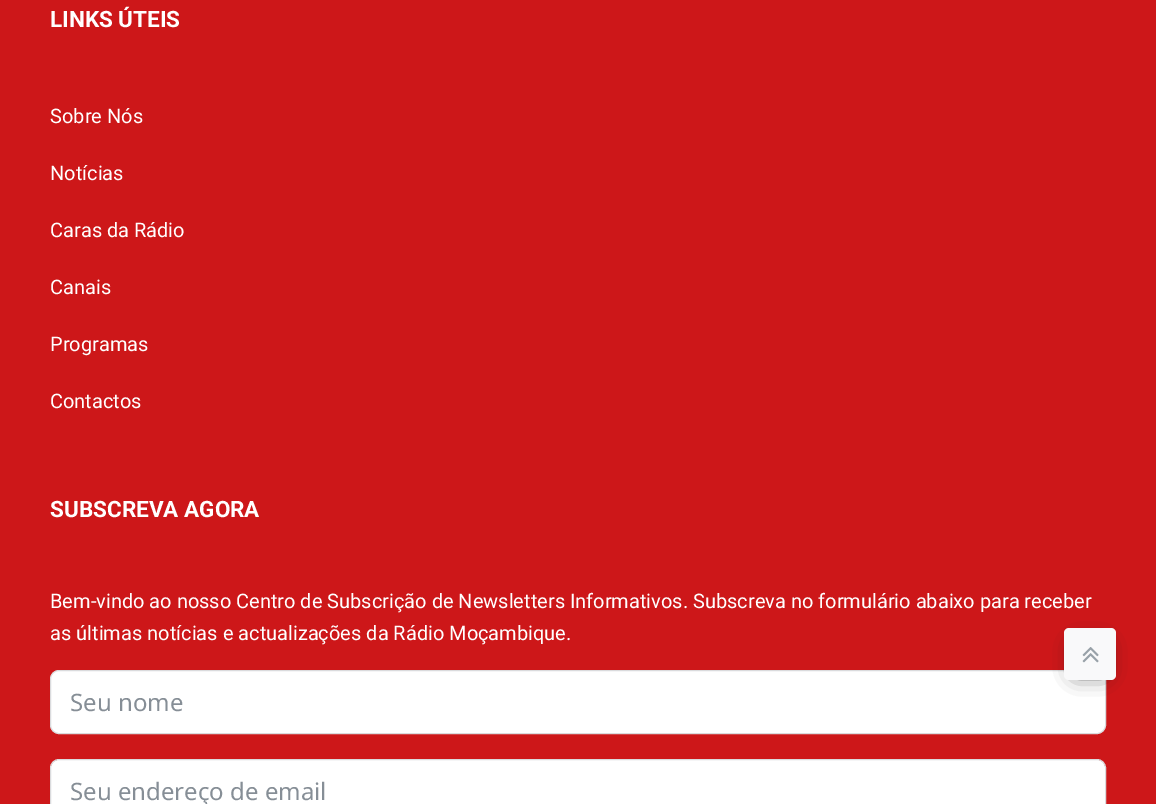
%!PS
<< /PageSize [1156 804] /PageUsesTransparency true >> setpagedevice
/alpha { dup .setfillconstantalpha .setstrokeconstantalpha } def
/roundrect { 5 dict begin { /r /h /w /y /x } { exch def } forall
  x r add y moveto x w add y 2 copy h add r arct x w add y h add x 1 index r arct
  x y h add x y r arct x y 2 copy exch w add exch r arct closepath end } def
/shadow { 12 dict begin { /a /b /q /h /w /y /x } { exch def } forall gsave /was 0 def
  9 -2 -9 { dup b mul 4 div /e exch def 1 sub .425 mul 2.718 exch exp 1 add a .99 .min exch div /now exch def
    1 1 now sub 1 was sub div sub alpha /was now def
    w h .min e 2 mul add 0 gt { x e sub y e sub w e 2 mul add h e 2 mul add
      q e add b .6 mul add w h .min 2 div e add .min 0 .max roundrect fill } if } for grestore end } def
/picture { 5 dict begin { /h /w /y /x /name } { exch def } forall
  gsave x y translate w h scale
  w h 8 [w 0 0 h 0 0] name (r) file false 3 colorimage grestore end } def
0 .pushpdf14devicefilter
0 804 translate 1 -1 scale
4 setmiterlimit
0.804 0.09 0.098 setrgbcolor
0 0 1156 804 rectfill
/Roboto-Bold [22.5 0 0 -22.5 0 0] selectfont
1 setgray
50 27 moveto (LINKS ÚTEIS) show
/Roboto-Regular [20 0 0 -20 0 0] selectfont
50 123 moveto (Sobre Nós) show
50 180 moveto (Notícias) show
50 237 moveto (Caras da Rádio) show
50 294 moveto (Canais) show
50 351 moveto (Programas) show
50 408 moveto (Contactos) show
/Roboto-Bold [22.5 0 0 -22.5 0 0] selectfont
50 517 moveto (SUBSCREVA AGORA) show
/Roboto-Regular [20 0 0 -20 0 0] selectfont
50 608 moveto (Bem-vindo ao nosso Centro de Subscrição de Newsletters Informativos. Subscreva no formulário abaixo para receber) show
50 640 moveto (as últimas notícias e actualizações da Rádio Moçambique.) show
50.5 670.5 1055 63 8.5 roundrect gsave fill grestore
0.855 0.859 0.867 setrgbcolor
stroke
/NotoSans-Regular [24 0 0 -24 0 0] selectfont
0.525 0.557 0.588 setrgbcolor
70 711 moveto (Seu nome) show
1 setgray
51 760 1054 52 8 roundrect fill
0.855 0.859 0.867 setrgbcolor
50.5 759.5 1055 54 8.5 roundrect stroke
0.525 0.557 0.588 setrgbcolor
70 800 moveto (Seu endereço de email) show
0.118 setgray
1076 645 28 28 0 10.5 1 shadow
0.976 0.976 0.98 setrgbcolor
1064 628 52 52 5 roundrect fill
(img1.rgb) 1082 647 17 16 picture
.poppdf14devicefilter showpage
